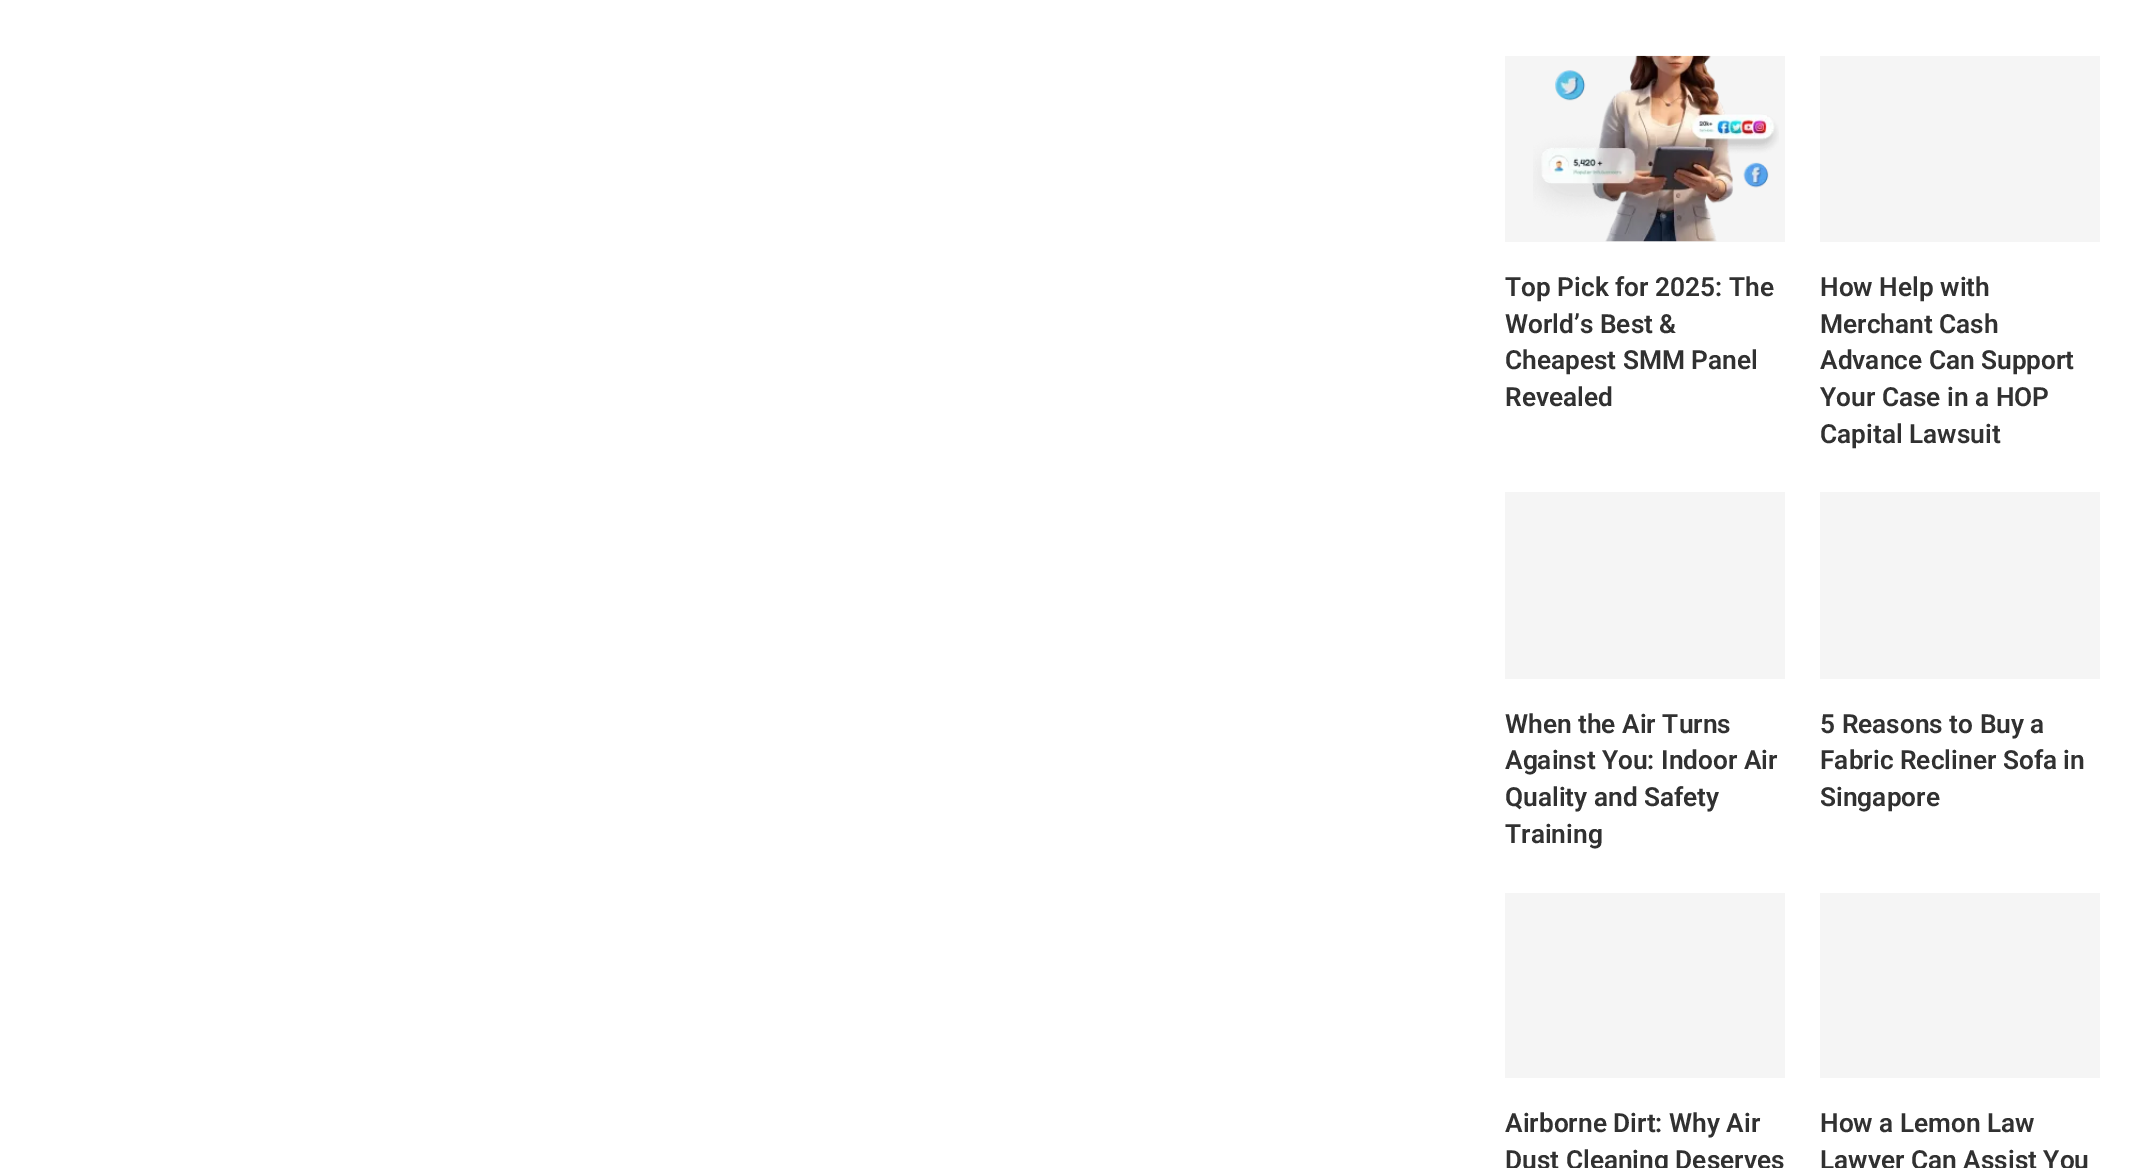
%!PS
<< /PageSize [2152 1168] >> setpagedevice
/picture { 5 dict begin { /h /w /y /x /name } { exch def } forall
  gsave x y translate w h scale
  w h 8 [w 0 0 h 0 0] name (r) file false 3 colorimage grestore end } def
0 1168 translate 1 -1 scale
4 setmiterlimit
1 setgray
0 0 2152 1168 rectfill
0.961 setgray
1505 56 280 186 rectfill
(img1.rgb) 1533 55 246 187 picture
/Roboto-SemiBold [26.25 0 0 -26.25 0 0] selectfont
0.192 setgray
1505 296 moveto (Top Pick for 2025: The) show
1505 333 moveto (World’s Best &) show
1505 369 moveto (Cheapest SMM Panel) show
1505 406 moveto (Revealed) show
0.961 setgray
1820 56 280 186 rectfill
0.192 setgray
1820 296 moveto (How Help with) show
1820 333 moveto (Merchant Cash) show
1820 369 moveto (Advance Can Support) show
1820 406 moveto (Your Case in a HOP) show
1820 443 moveto (Capital Lawsuit) show
0.961 setgray
1505 492 280 187 rectfill
0.192 setgray
1505 733 moveto (When the Air Turns) show
1505 769 moveto (Against You: Indoor Air) show
1505 806 moveto (Quality and Safety) show
1505 843 moveto (Training) show
0.961 setgray
1820 492 280 187 rectfill
0.192 setgray
1820 733 moveto (5 Reasons to Buy a) show
1820 769 moveto (Fabric Recliner Sofa in) show
1820 806 moveto (Singapore) show
0.961 setgray
1505 893 280 185 rectfill
0.192 setgray
1505 1132 moveto (Airborne Dirt: Why Air) show
1505 1169 moveto (Dust Cleaning Deserves) show
0.961 setgray
1820 893 280 185 rectfill
0.192 setgray
1820 1132 moveto (How a Lemon Law) show
1820 1169 moveto (Lawyer Can Assist You) show
showpage
